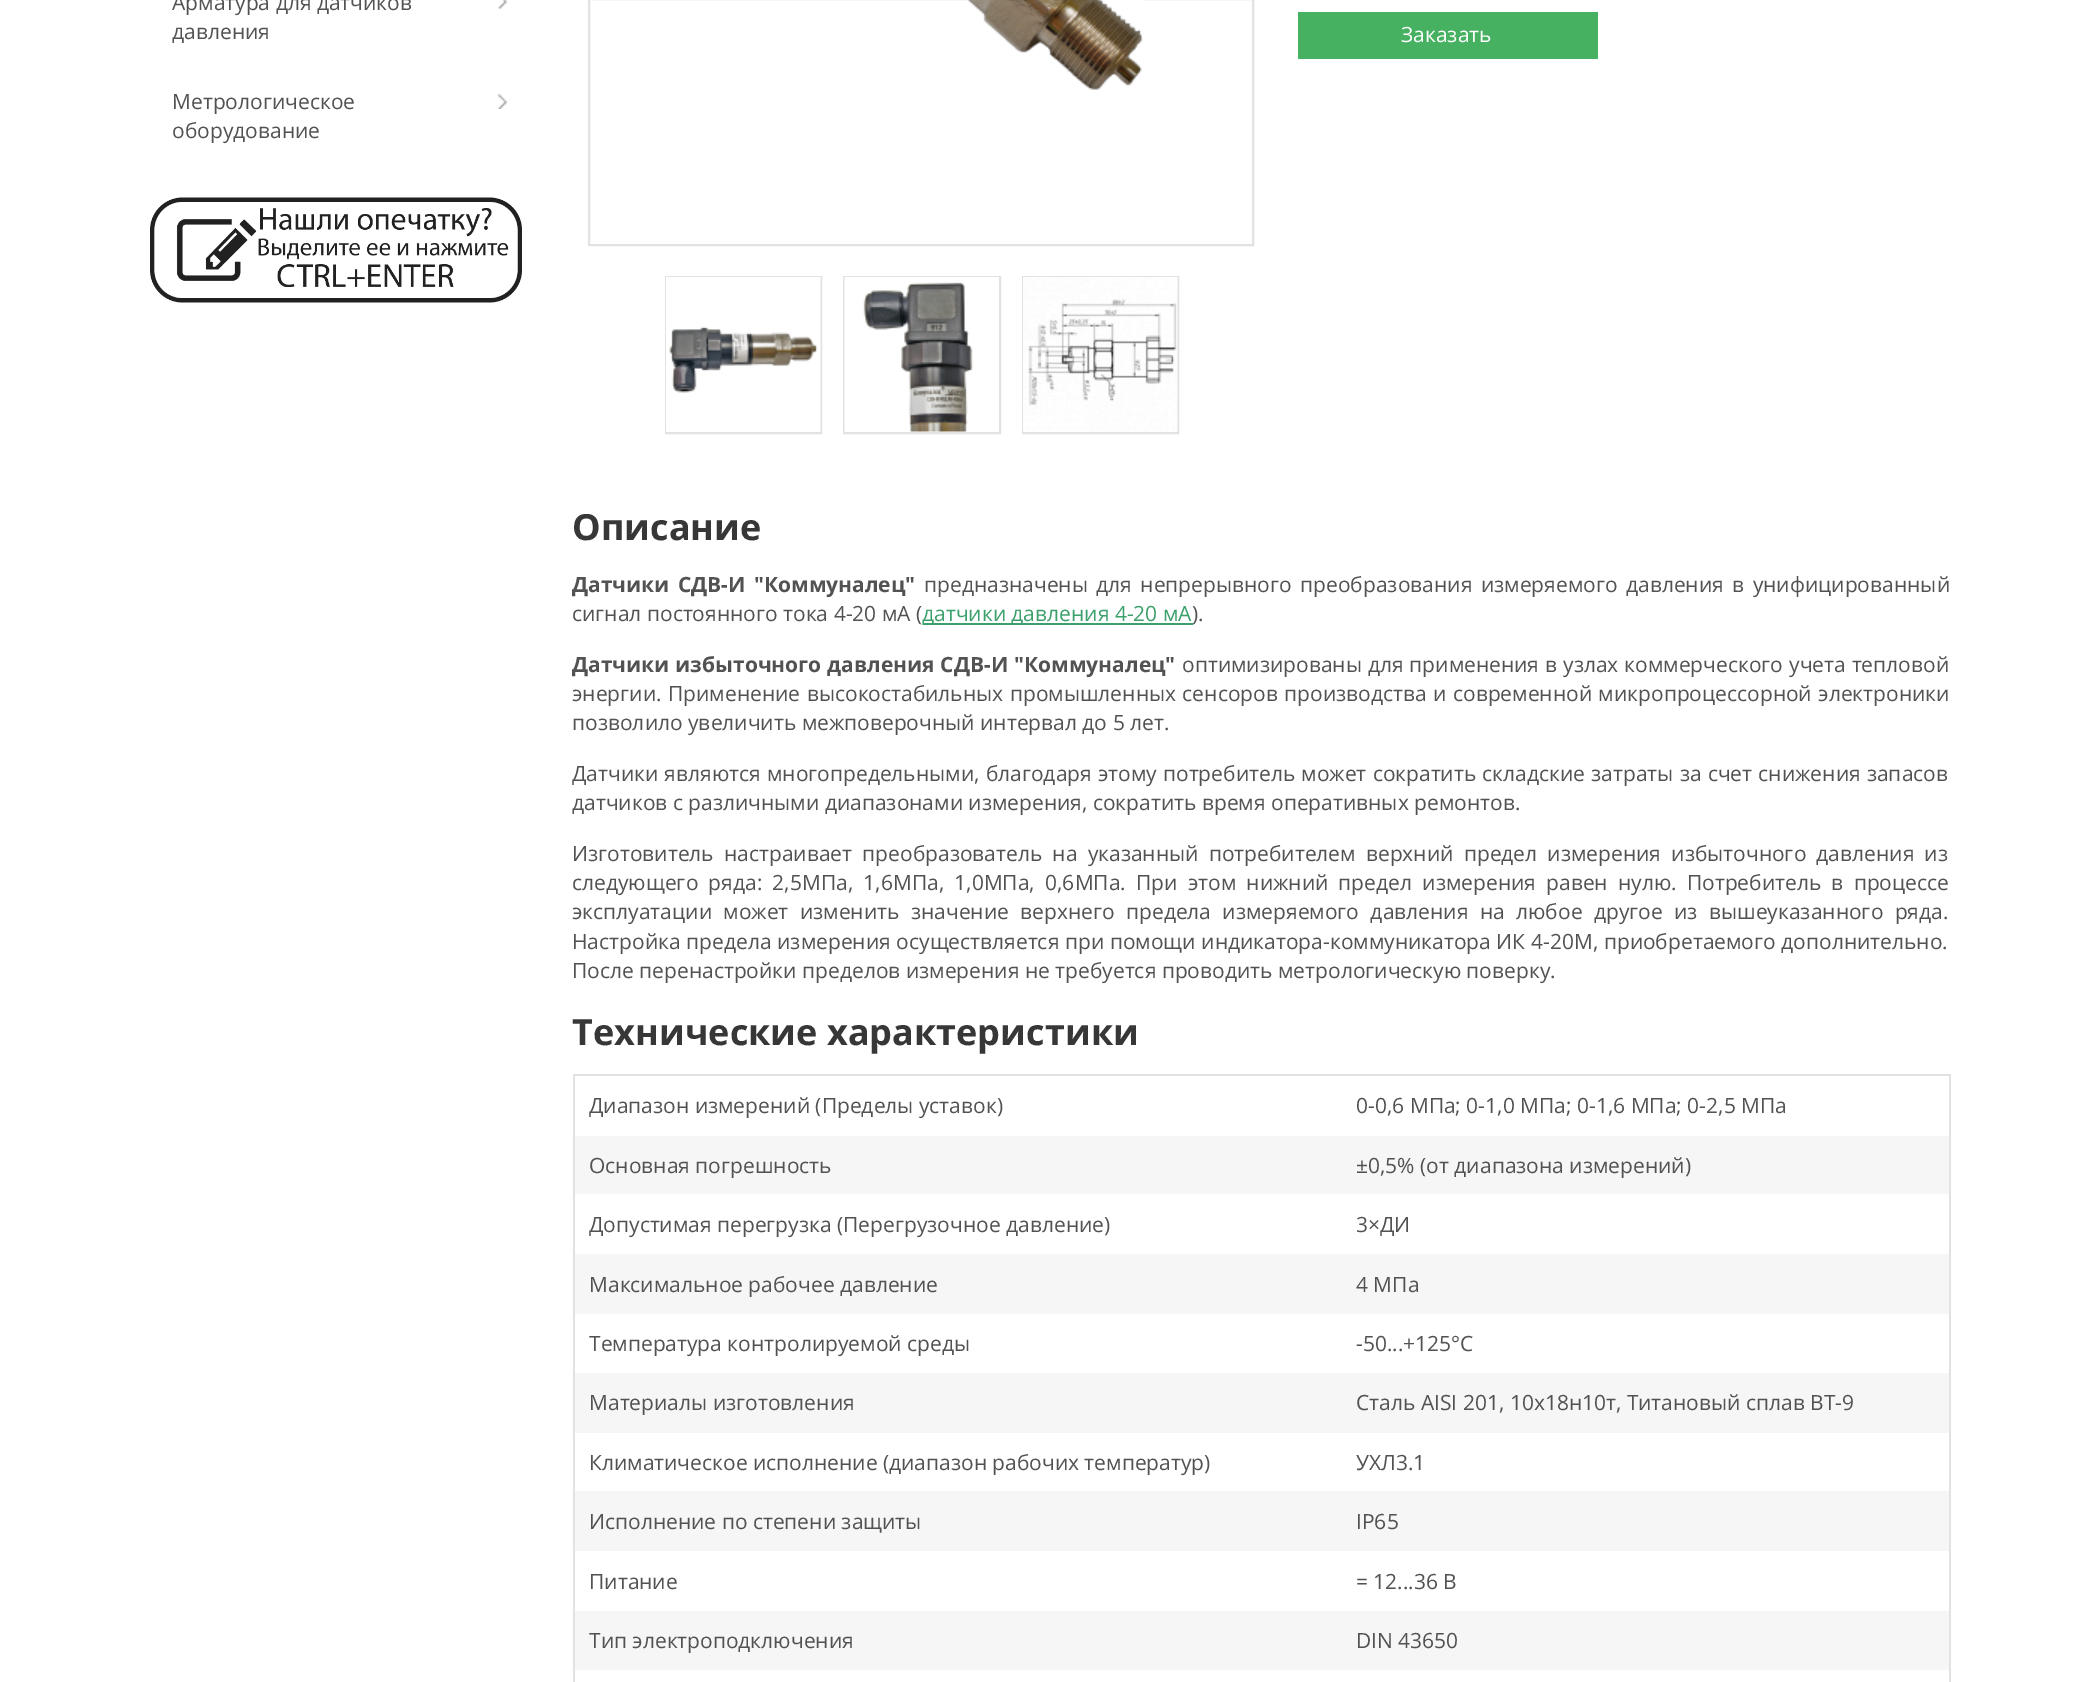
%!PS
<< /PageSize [2098 1682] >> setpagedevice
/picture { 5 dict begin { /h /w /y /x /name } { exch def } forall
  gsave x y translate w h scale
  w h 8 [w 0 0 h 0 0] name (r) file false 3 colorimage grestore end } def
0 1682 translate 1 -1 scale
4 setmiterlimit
1 setgray
0 0 2098 1682 rectfill
/OpenSans-Regular [21 0 0 -21 0 0] selectfont
0.322 setgray
172 10 moveto (Арматура для датчиков) show
(img1.rgb) 498 0 9 9 picture
172 39 moveto (давления) show
172 109 moveto (Метрологическое) show
(img2.rgb) 498 94 9 15 picture
172 138 moveto (оборудование) show
(img3.rgb) 150 197 372 106 picture
0.886 setgray
2 setlinewidth
589 -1 664 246 rectstroke
(img4.rgb) 967 0 176 90 picture
666 277 155 156 rectstroke
(img5.rgb) 666 277 155 155 picture
844 277 156 156 rectstroke
(img6.rgb) 844 277 155 155 picture
1023 277 155 156 rectstroke
(img7.rgb) 1023 277 155 155 picture
0.278 0.694 0.384 setrgbcolor
1298 12 300 47 rectfill
1 setgray
1401 42 moveto (Заказать) show
/OpenSans-Bold [36 0 0 -36 0 0] selectfont
0.216 setgray
572 540 moveto (Описание) show
/OpenSans-Bold [21 0 0 -21 0 0] selectfont
0.322 setgray
572 592 moveto 3 0 32 (Датчики СДВ-И "Коммуналец") widthshow
/OpenSans-Regular [21 0 0 -21 0 0] selectfont
924 592 moveto 3 0 32 (предназначены для непрерывного преобразования измеряемого давления в унифицированный) widthshow
572 621 moveto (сигнал постоянного тока 4-20 мА \() show
0.231 0.627 0.42 setrgbcolor
923 623 270 2 rectfill
922 621 moveto (датчики давления 4-20 мА) show
0.322 setgray
1192 621 moveto (\).) show
/OpenSans-Bold [21 0 0 -21 0 0] selectfont
572 672 moveto 0.5 0 32 (Датчики избыточного давления СДВ-И "Коммуналец") widthshow
/OpenSans-Regular [21 0 0 -21 0 0] selectfont
1182 672 moveto 0.5 0 32 (оптимизированы для применения в узлах коммерческого учета тепловой) widthshow
572 701 moveto 1 0 32 (энергии. Применение высокостабильных промышленных сенсоров производства и современной микропроцессорной электроники) widthshow
572 730 moveto (позволило увеличить межповерочный интервал до 5 лет.) show
572 781 moveto 0.75 0 32 (Датчики являются многопредельными, благодаря этому потребитель может сократить складские затраты за счет снижения запасов) widthshow
572 810 moveto (датчиков с различными диапазонами измерения, сократить время оперативных ремонтов.) show
572 861 moveto 4.75 0 32 (Изготовитель настраивает преобразователь на указанный потребителем верхний предел измерения избыточного давления из) widthshow
572 890 moveto 4.75 0 32 (следующего ряда: 2,5МПа, 1,6МПа, 1,0МПа, 0,6МПа. При этом нижний предел измерения равен нулю. Потребитель в процессе) widthshow
572 919 moveto 5.9 0 32 (эксплуатации может изменить значение верхнего предела измеряемого давления на любое другое из вышеуказанного ряда.) widthshow
572 949 moveto 0.25 0 32 (Настройка предела измерения осуществляется при помощи индикатора-коммуникатора ИК 4-20М, приобретаемого дополнительно.) widthshow
572 978 moveto (После перенастройки пределов измерения не требуется проводить метрологическую поверку.) show
/OpenSans-Bold [36 0 0 -36 0 0] selectfont
0.216 setgray
572 1045 moveto (Технические характеристики) show
0.886 setgray
573 1074 1377 2 rectfill
1949 1074 2 608 rectfill
573 1074 2 608 rectfill
/OpenSans-Regular [21 0 0 -21 0 0] selectfont
0.322 setgray
589 1113 moveto (Диапазон измерений \(Пределы уставок\)) show
1356 1113 moveto (0-0,6 МПа; 0-1,0 МПа; 0-1,6 МПа; 0-2,5 МПа) show
0.965 setgray
575 1136 1374 58 rectfill
0.322 setgray
589 1173 moveto (Основная погрешность) show
1356 1173 moveto (±0,5% \(от диапазона измерений\)) show
589 1232 moveto (Допустимая перегрузка \(Перегрузочное давление\)) show
1356 1232 moveto (3×ДИ) show
0.965 setgray
575 1254 1374 60 rectfill
0.322 setgray
589 1292 moveto (Максимальное рабочее давление) show
1356 1292 moveto (4 МПа) show
589 1351 moveto (Температура контролируемой среды) show
1356 1351 moveto (-50...+125°C) show
0.965 setgray
575 1373 1374 60 rectfill
0.322 setgray
589 1410 moveto (Материалы изготовления) show
1356 1410 moveto (Сталь AISI 201, 10х18н10т, Титановый сплав ВТ-9) show
589 1470 moveto (Климатическое исполнение \(диапазон рабочих температур\)) show
1356 1470 moveto (УХЛ3.1) show
0.965 setgray
575 1491 1374 60 rectfill
0.322 setgray
589 1529 moveto (Исполнение по степени защиты) show
1356 1529 moveto (IP65) show
589 1589 moveto (Питание) show
1356 1589 moveto (= 12...36 В) show
0.965 setgray
575 1611 1374 59 rectfill
0.322 setgray
589 1648 moveto (Тип электроподключения) show
1356 1648 moveto (DIN 43650) show
showpage
